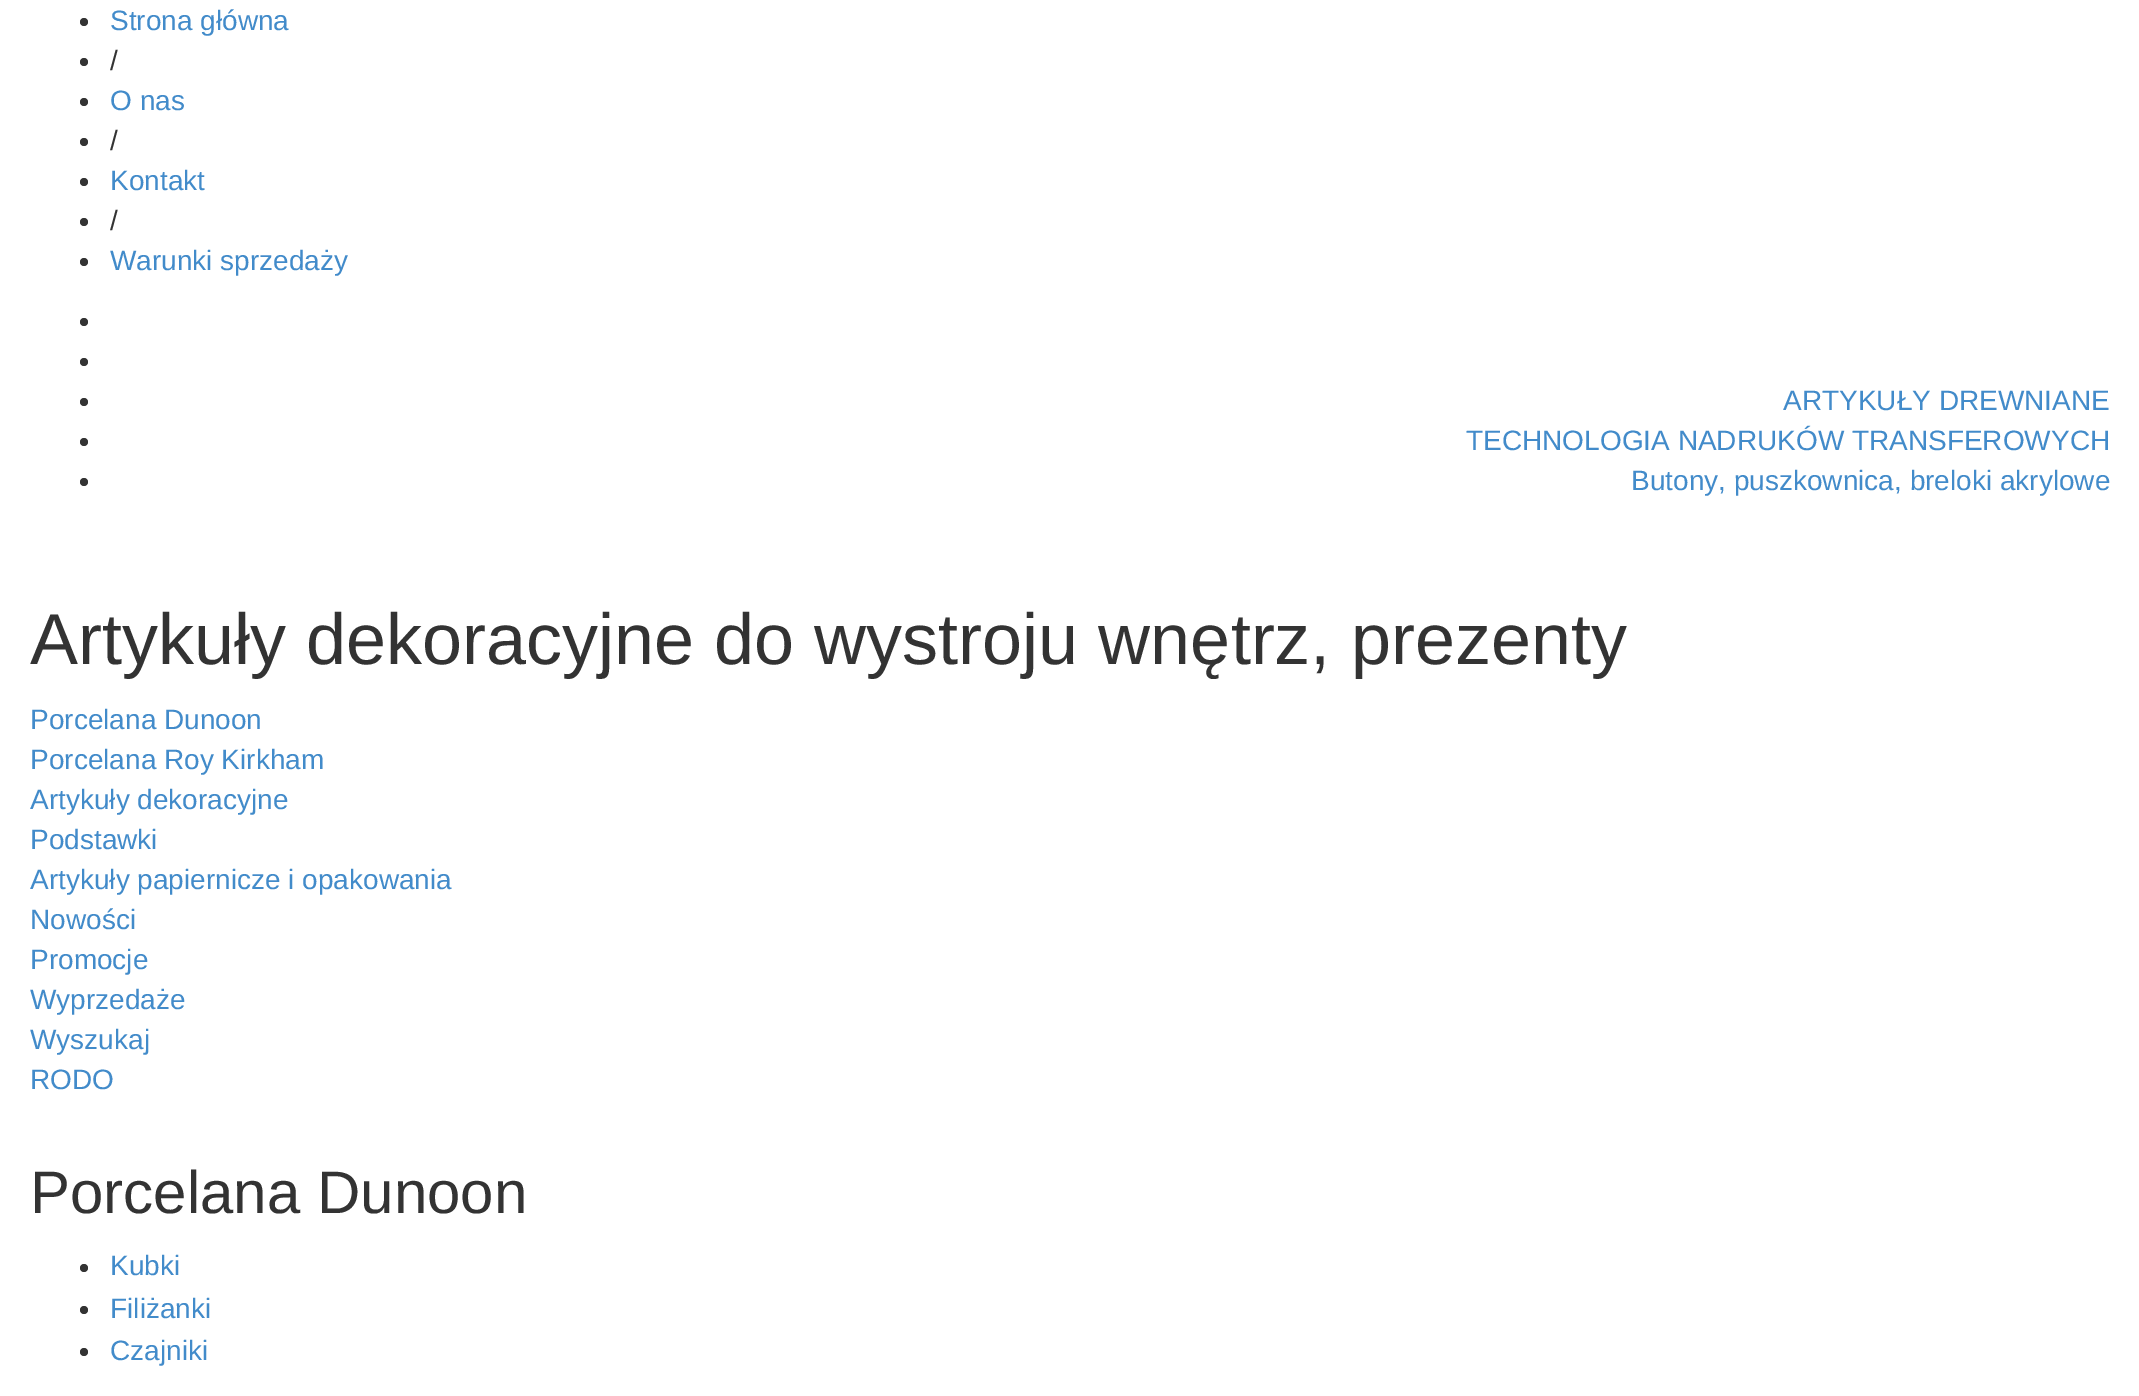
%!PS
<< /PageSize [2139 1396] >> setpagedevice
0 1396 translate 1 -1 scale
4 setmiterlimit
1 setgray
0 0 2139 1396 rectfill
0.2 setgray
newpath 84 22 4 0 360 arc closepath fill
/LiberationSans-Regular [28 0 0 -28 0 0] selectfont
0.259 0.545 0.792 setrgbcolor
110 30 moveto (Strona główna) show
0.2 setgray
newpath 84 62 4 0 360 arc closepath fill
110 70 moveto (/) show
newpath 84 102 4 0 360 arc closepath fill
0.259 0.545 0.792 setrgbcolor
110 110 moveto (O nas) show
0.2 setgray
newpath 84 142 4 0 360 arc closepath fill
110 150 moveto (/) show
newpath 84 182 4 0 360 arc closepath fill
0.259 0.545 0.792 setrgbcolor
110 190 moveto (Kontakt) show
0.2 setgray
newpath 84 222 4 0 360 arc closepath fill
110 230 moveto (/) show
newpath 84 262 4 0 360 arc closepath fill
0.259 0.545 0.792 setrgbcolor
110 270 moveto (Warunki sprzedaży) show
0.2 setgray
newpath 84 322 4 0 360 arc closepath fill
newpath 84 362 4 0 360 arc closepath fill
newpath 84 402 4 0 360 arc closepath fill
0.259 0.545 0.792 setrgbcolor
1783 410 moveto (ARTYKUŁY DREWNIANE) show
0.2 setgray
newpath 84 442 4 0 360 arc closepath fill
0.259 0.545 0.792 setrgbcolor
1466 450 moveto (TECHNOLOGIA NADRUKÓW TRANSFEROWYCH) show
0.2 setgray
newpath 84 482 4 0 360 arc closepath fill
0.259 0.545 0.792 setrgbcolor
1631 490 moveto (Butony, puszkownica, breloki akrylowe) show
/LiberationSans-Regular [72 0 0 -72 0 0] selectfont
0.2 setgray
30 664 moveto (Artykuły dekoracyjne do wystroju wnętrz, prezenty) show
/LiberationSans-Regular [28 0 0 -28 0 0] selectfont
0.259 0.545 0.792 setrgbcolor
30 729 moveto (Porcelana Dunoon) show
30 769 moveto (Porcelana Roy Kirkham) show
30 809 moveto (Artykuły dekoracyjne) show
30 849 moveto (Podstawki) show
30 889 moveto (Artykuły papiernicze i opakowania) show
30 929 moveto (Nowości) show
30 969 moveto (Promocje) show
30 1009 moveto (Wyprzedaże) show
30 1049 moveto (Wyszukaj) show
30 1089 moveto (RODO) show
/LiberationSans-Regular [60 0 0 -60 0 0] selectfont
0.2 setgray
30 1213 moveto (Porcelana Dunoon) show
newpath 84 1268 4 0 360 arc closepath fill
/LiberationSans-Regular [28 0 0 -28 0 0] selectfont
0.259 0.545 0.792 setrgbcolor
110 1275 moveto (Kubki) show
0.2 setgray
newpath 84 1310 4 0 360 arc closepath fill
0.259 0.545 0.792 setrgbcolor
110 1318 moveto (Filiżanki) show
0.2 setgray
newpath 84 1352 4 0 360 arc closepath fill
0.259 0.545 0.792 setrgbcolor
110 1360 moveto (Czajniki) show
showpage
